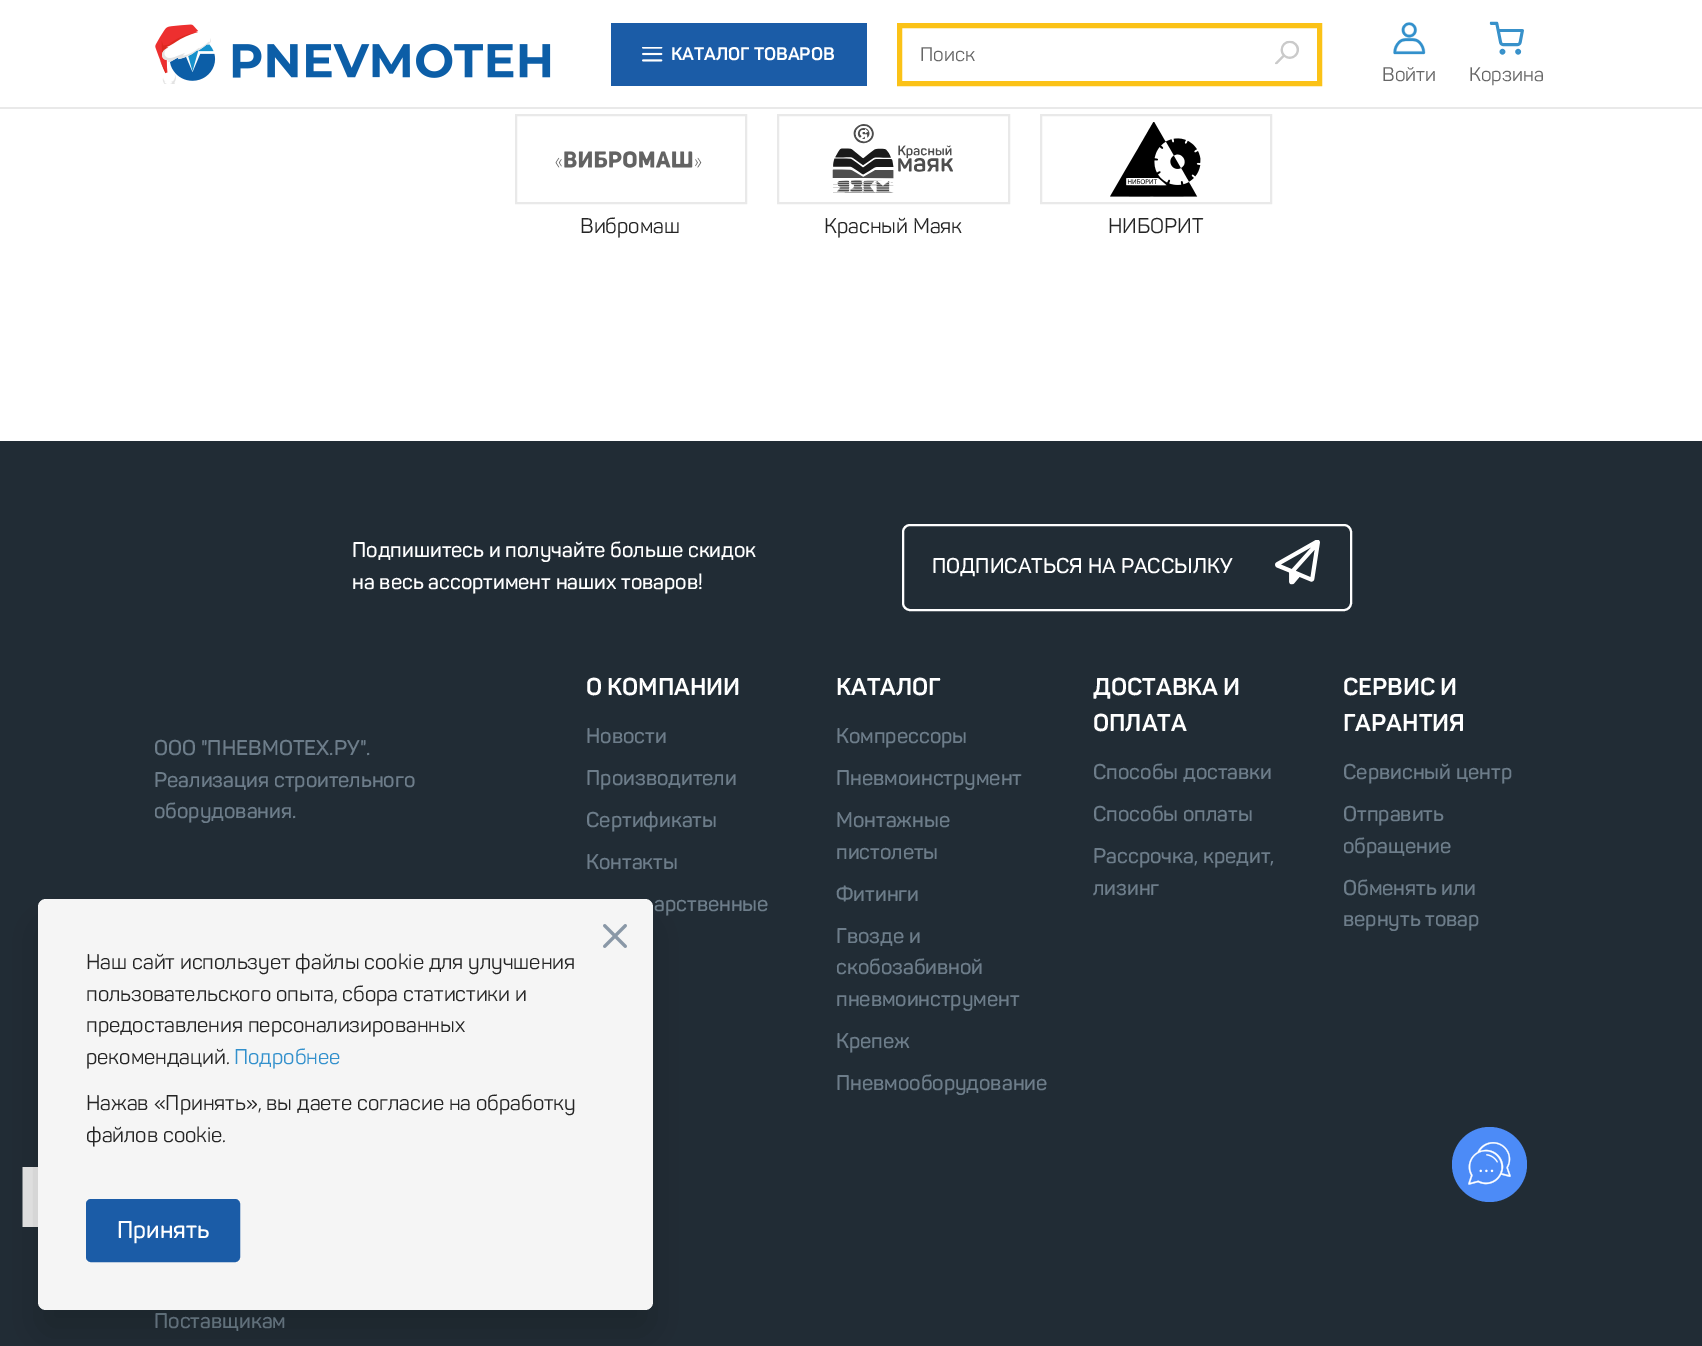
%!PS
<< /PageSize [1702 1346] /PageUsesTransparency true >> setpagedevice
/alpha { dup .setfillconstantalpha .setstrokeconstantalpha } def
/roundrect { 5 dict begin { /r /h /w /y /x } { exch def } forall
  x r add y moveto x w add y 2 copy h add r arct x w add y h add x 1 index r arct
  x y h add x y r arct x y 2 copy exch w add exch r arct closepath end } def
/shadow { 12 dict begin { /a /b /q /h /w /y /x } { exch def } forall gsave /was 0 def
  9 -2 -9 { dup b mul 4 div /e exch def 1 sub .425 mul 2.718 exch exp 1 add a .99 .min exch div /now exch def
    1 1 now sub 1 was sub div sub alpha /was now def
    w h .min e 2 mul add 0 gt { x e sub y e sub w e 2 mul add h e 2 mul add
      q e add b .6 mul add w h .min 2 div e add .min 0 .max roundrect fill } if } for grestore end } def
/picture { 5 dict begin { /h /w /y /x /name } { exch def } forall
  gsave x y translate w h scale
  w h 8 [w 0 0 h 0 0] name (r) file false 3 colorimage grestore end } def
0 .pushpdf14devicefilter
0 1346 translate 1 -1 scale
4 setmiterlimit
1 setgray
0 0 1702 1346 rectfill
0.914 setgray
0 107 1702 2 rectfill
(img1.rgb) 155 24 396 60 picture
0.106 0.361 0.655 setrgbcolor
611 23 256 63 rectfill
(img2.rgb) 642 47 21 15 picture
/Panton-Bold [18 0 0 -18 0 0] selectfont
1 setgray
671 60 moveto (КАТАЛОГ ТОВАРОВ) show
0.984 0.761 0.09 setrgbcolor
5 setlinewidth
899.5 25.5 420 58 rectstroke
/Panton-Regular [19.5 0 0 -19.5 0 0] selectfont
0.4 setgray
920 61 moveto (Поиск) show
(img3.rgb) 1275 40 24 25 picture
(img4.rgb) 1393 22 33 33 picture
1382 81 moveto (Войти) show
(img5.rgb) 1489 21 35 34 picture
1469 81 moveto (Корзина) show
0.914 setgray
2 setlinewidth
516 115 230 88 rectstroke
(img6.rgb) 555 151 147 17 picture
/Panton-Regular [21 0 0 -21 0 0] selectfont
0.145 setgray
580 233 moveto (Вибромаш) show
0.914 setgray
778 115 231 88 rectstroke
(img7.rgb) 832 124 121 69 picture
0.145 setgray
824 233 moveto (Красный Маяк) show
0.914 setgray
1041 115 230 88 rectstroke
(img8.rgb) 1110 122 91 75 picture
0.145 setgray
1108 233 moveto (НИБОРИТ) show
0.129 0.173 0.208 setrgbcolor
0 441 1702 905 rectfill
(img9.rgb) 22 1167 16 60 picture
/Panton-SemiBold [21 0 0 -21 0 0] selectfont
1 setgray
352 557 moveto (Подпишитесь и получайте больше скидок) show
352 589 moveto (на весь ассортимент наших товаров!) show
903 525 448 85 7 roundrect stroke
932 573 moveto (ПОДПИСАТЬСЯ НА РАССЫЛКУ) show
(img10.rgb) 1275 540 45 45 picture
0.427 0.49 0.541 setrgbcolor
154 755 moveto (ООО "ПНЕВМОТЕХ.РУ".) show
154 787 moveto (Реализация строительного) show
154 818 moveto (оборудования.) show
/Panton-Bold [24 0 0 -24 0 0] selectfont
1 setgray
586 695 moveto (О КОМПАНИИ) show
/Panton-SemiBold [21 0 0 -21 0 0] selectfont
0.427 0.49 0.541 setrgbcolor
586 743 moveto (Новости) show
586 785 moveto (Производители) show
586 827 moveto (Сертификаты) show
586 869 moveto (Контакты) show
654 911 moveto (арственные) show
/Panton-Bold [24 0 0 -24 0 0] selectfont
1 setgray
836 695 moveto (КАТАЛОГ) show
/Panton-SemiBold [21 0 0 -21 0 0] selectfont
0.427 0.49 0.541 setrgbcolor
836 743 moveto (Компрессоры) show
836 785 moveto (Пневмоинструмент) show
836 827 moveto (Монтажные) show
836 859 moveto (пистолеты) show
836 901 moveto (Фитинги) show
836 943 moveto (Гвозде и) show
836 974 moveto (скобозабивной) show
836 1006 moveto (пневмоинструмент) show
836 1048 moveto (Крепеж) show
836 1090 moveto (Пневмооборудование) show
/Panton-Bold [24 0 0 -24 0 0] selectfont
1 setgray
1093 695 moveto (ДОСТАВКА И) show
1093 731 moveto (ОПЛАТА) show
/Panton-SemiBold [21 0 0 -21 0 0] selectfont
0.427 0.49 0.541 setrgbcolor
1093 779 moveto (Способы доставки) show
1093 821 moveto (Способы оплаты) show
1093 863 moveto (Рассрочка, кредит,) show
1093 895 moveto (лизинг) show
/Panton-Bold [24 0 0 -24 0 0] selectfont
1 setgray
1343 695 moveto (СЕРВИС И) show
1343 731 moveto (ГАРАНТИЯ) show
/Panton-SemiBold [21 0 0 -21 0 0] selectfont
0.427 0.49 0.541 setrgbcolor
1343 779 moveto (Сервисный центр) show
1343 821 moveto (Отправить) show
1343 853 moveto (обращение) show
1343 895 moveto (Обменять или) show
1343 926 moveto (вернуть товар) show
154 1328 moveto (Поставщикам) show
0 setgray
38 923 615 411 8 21 0.16 shadow
0.961 setgray
38 899 615 411 8 roundrect fill
/Panton-Regular [21 0 0 -21 0 0] selectfont
0.145 setgray
86 969 moveto (Наш сайт использует файлы cookie для улучшения) show
86 1001 moveto (пользовательского опыта, сбора статистики и) show
86 1032 moveto (предоставления персонализированных) show
86 1064 moveto (рекомендаций.) show
0.196 0.565 0.8 setrgbcolor
234 1064 moveto (Подробнее) show
0.145 setgray
86 1110 moveto (Нажав «Принять», вы даете согласие на обработку) show
86 1142 moveto (файлов cookie.) show
(img11.rgb) 603 924 24 24 picture
0.106 0.361 0.655 setrgbcolor
87 1200 152 61 4 roundrect gsave fill grestore
stroke
/Panton-SemiBold [24 0 0 -24 0 0] selectfont
1 setgray
117 1238 moveto (Принять) show
0.298 0.545 0.969 setrgbcolor
newpath 1489.5 1164.5 37.5 0 360 arc closepath fill
(img12.rgb) 1468 1142 43 43 picture
.poppdf14devicefilter showpage
